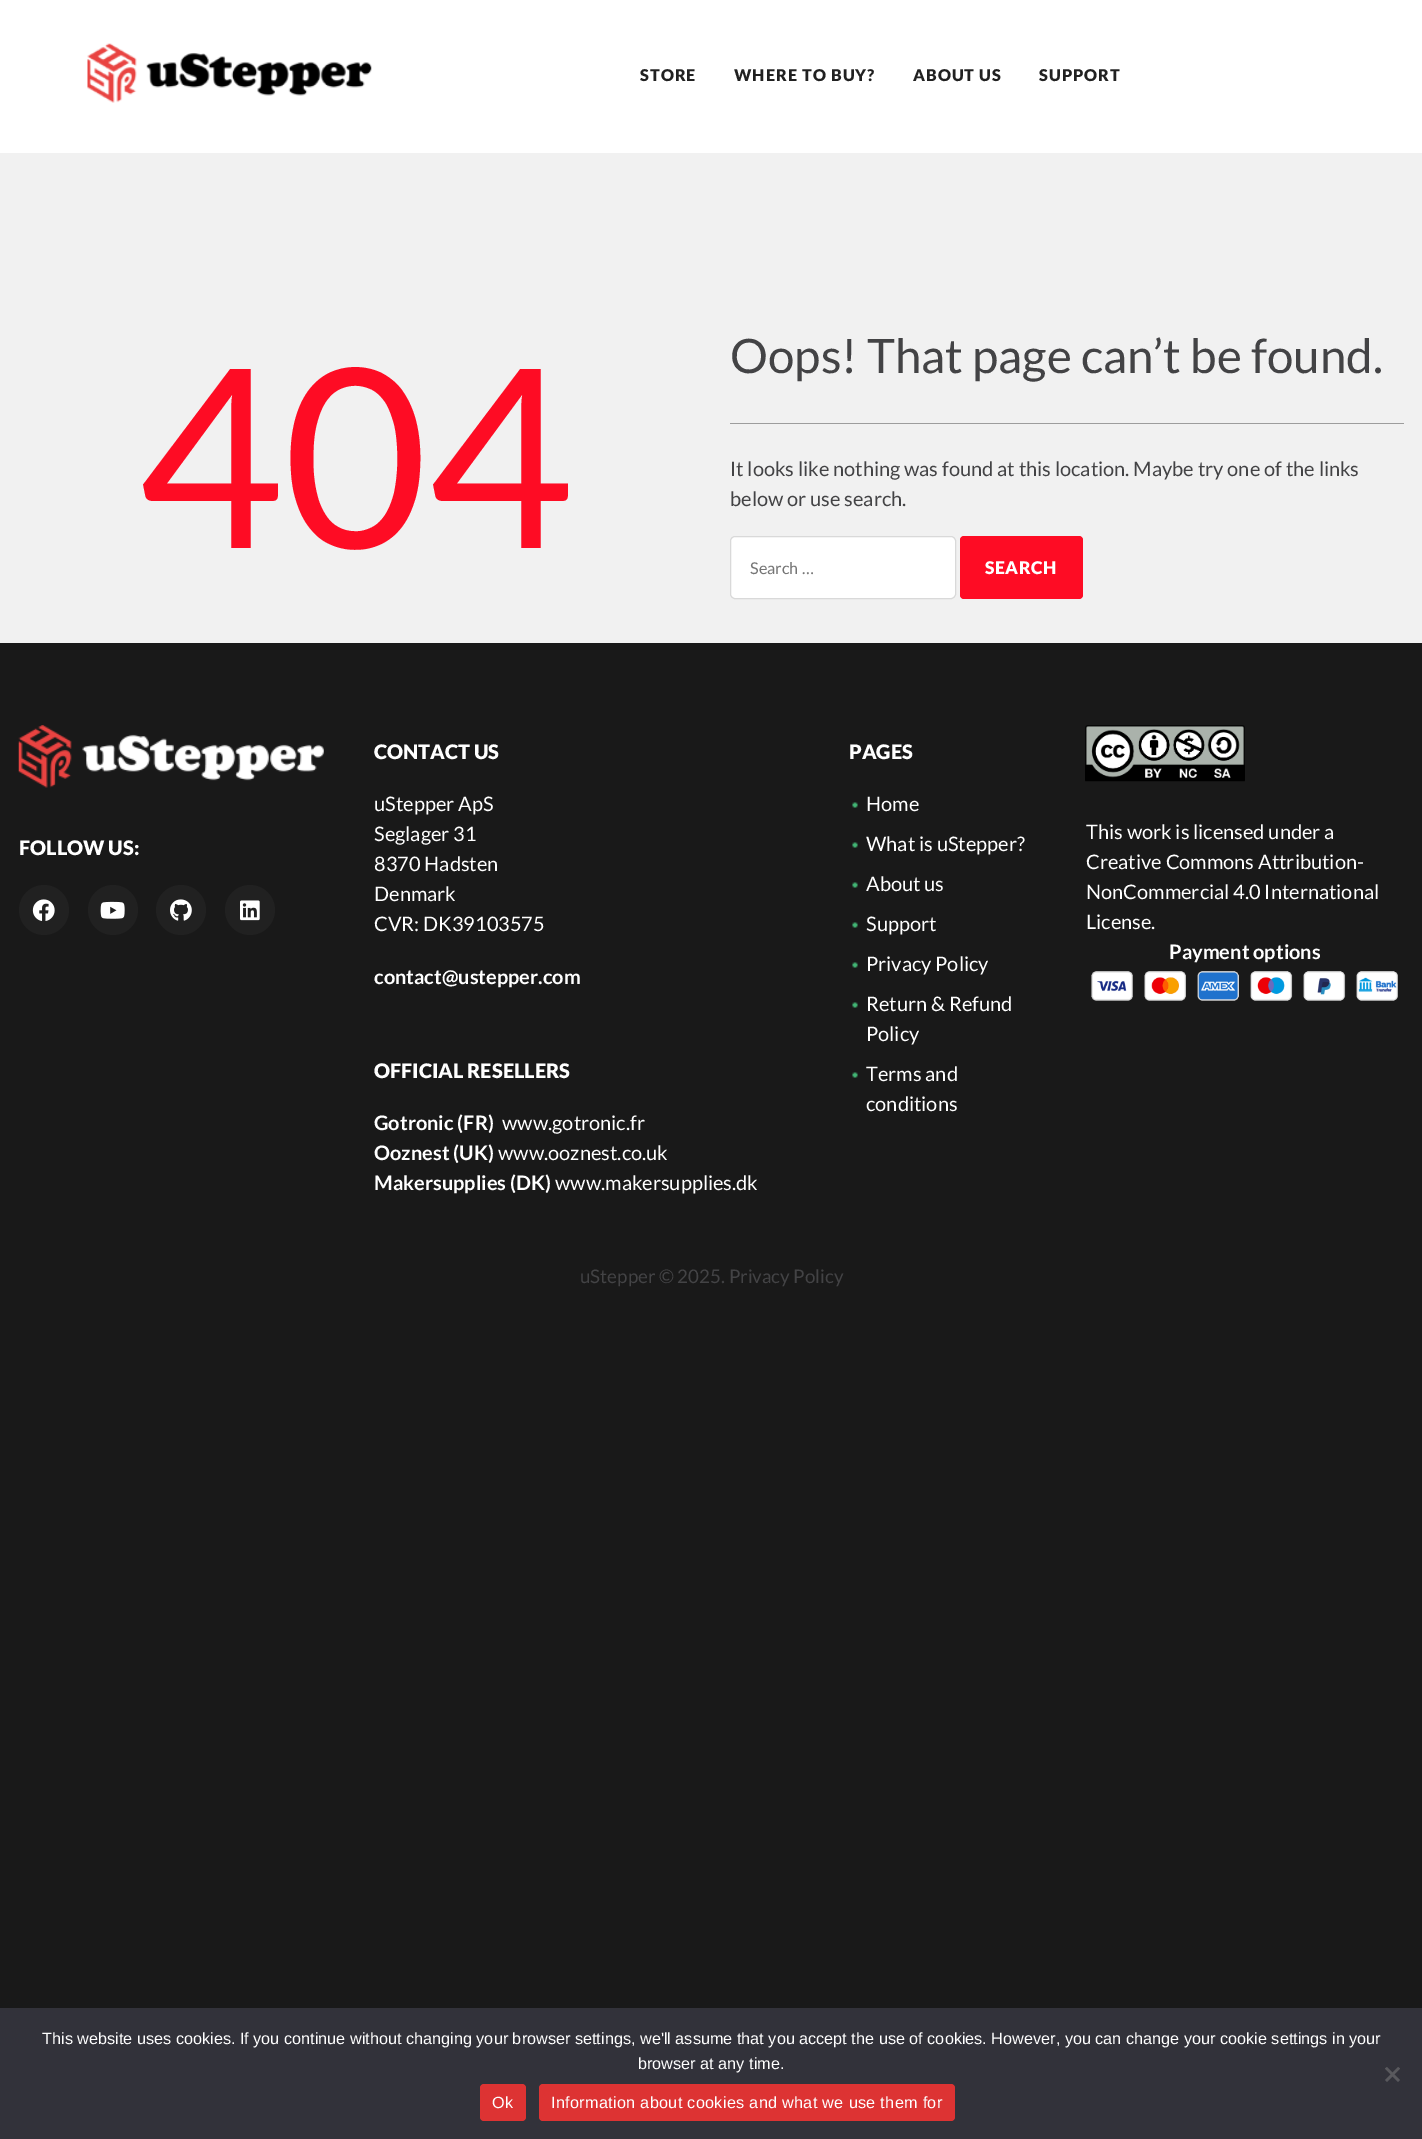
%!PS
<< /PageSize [1422 2139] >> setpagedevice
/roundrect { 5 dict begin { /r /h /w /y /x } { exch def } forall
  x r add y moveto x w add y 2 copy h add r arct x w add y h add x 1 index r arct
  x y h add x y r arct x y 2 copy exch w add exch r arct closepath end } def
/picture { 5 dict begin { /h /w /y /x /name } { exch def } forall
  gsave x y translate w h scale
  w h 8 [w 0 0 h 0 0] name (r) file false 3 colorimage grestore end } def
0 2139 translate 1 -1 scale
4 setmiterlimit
0.098 setgray
0 0 1422 2139 rectfill
1 setgray
0 0 1422 153 rectfill
(img1.rgb) 87 43 285 60 picture
/Lato-Black [16.25 0 0 -16.25 0 0] selectfont
0.129 setgray
640 81 moveto 1 0 (STORE) ashow
734 81 moveto 1 0 (WHERE TO BUY?) ashow
913 81 moveto 1 0 (ABOUT US) ashow
1039 81 moveto 1 0 (SUPPORT) ashow
0.945 setgray
0 153 1422 490 rectfill
/Lato-Regular [250 0 0 -250 0 0] selectfont
0.996 0.047 0.141 setrgbcolor
138 548 moveto (404) show
0.616 setgray
730 423 674 1 rectfill
/Lato-Regular [47.5 0 0 -47.5 0 0] selectfont
0.263 0.263 0.271 setrgbcolor
730 373 moveto (Oops! That page can’t be found.) show
/Lato-Regular [20 0 0 -20 0 0] selectfont
730 476 moveto (It looks like nothing was found at this location. Maybe try one of the links) show
730 506 moveto (below or use search.) show
1 setgray
730.5 536.5 225 62 4.5 roundrect gsave fill grestore
0.851 setgray
stroke
/Lato-Regular [16.25 0 0 -16.25 0 0] selectfont
0.459 setgray
750 574 moveto (Search …) show
0.996 0.047 0.141 setrgbcolor
960 536 123 63 4 roundrect fill
/Lato-Black [17.5 0 0 -17.5 0 0] selectfont
1 setgray
985 574 moveto 0.5 0 (SEARCH) ashow
(img2.rgb) 18 725 306 63 picture
/Lato-Black [20 0 0 -20 0 0] selectfont
19 855 moveto (FOLLOW US:) show
0.129 setgray
newpath 44 910 25 0 360 arc closepath fill
(img3.rgb) 32 899 23 22 picture
newpath 113 910 25 0 360 arc closepath fill
(img4.rgb) 100 901 25 18 picture
newpath 181 910 25 0 360 arc closepath fill
(img5.rgb) 170 899 22 22 picture
newpath 250 910 25 0 360 arc closepath fill
(img6.rgb) 240 900 20 21 picture
1 setgray
374 759 moveto (CONTACT US) show
/Lato-Regular [20 0 0 -20 0 0] selectfont
374 811 moveto (uStepper ApS) show
374 841 moveto (Seglager 31) show
374 871 moveto (8370 Hadsten) show
374 901 moveto (Denmark) show
374 931 moveto (CVR: DK39103575) show
/Lato-Bold [20 0 0 -20 0 0] selectfont
374 984 moveto (contact@ustepper.com) show
/Lato-Black [20 0 0 -20 0 0] selectfont
374 1078 moveto (OFFICIAL RESELLERS) show
/Lato-Bold [20 0 0 -20 0 0] selectfont
374 1130 moveto (Gotronic \(FR\)) show
/Lato-Regular [20 0 0 -20 0 0] selectfont
502 1130 moveto (www.gotronic.fr) show
/Lato-Bold [20 0 0 -20 0 0] selectfont
374 1160 moveto (Ooznest \(UK\)) show
/Lato-Regular [20 0 0 -20 0 0] selectfont
498 1160 moveto (www.ooznest.co.uk) show
/Lato-Bold [20 0 0 -20 0 0] selectfont
374 1190 moveto (Makersupplies \(DK\)) show
/Lato-Regular [20 0 0 -20 0 0] selectfont
555 1190 moveto (www.makersupplies.dk) show
/Lato-Black [20 0 0 -20 0 0] selectfont
849 759 moveto (PAGES) show
(img7.rgb) 852 802 6 6 picture
/Lato-Regular [20 0 0 -20 0 0] selectfont
866 811 moveto (Home) show
(img7.rgb) 852 842 6 6 picture
866 851 moveto (What is uStepper?) show
(img7.rgb) 852 882 6 6 picture
866 891 moveto (About us) show
(img7.rgb) 852 922 6 6 picture
866 931 moveto (Support) show
(img7.rgb) 852 962 6 6 picture
866 971 moveto (Privacy Policy) show
(img7.rgb) 852 1002 6 6 picture
866 1011 moveto (Return & Refund) show
866 1041 moveto (Policy) show
(img7.rgb) 852 1072 6 6 picture
866 1081 moveto (Terms and) show
866 1111 moveto (conditions) show
(img8.rgb) 1085 725 160 57 picture
1086 839 moveto (This work is licensed under a) show
1086 869 moveto (Creative Commons Attribution-) show
1086 899 moveto (NonCommercial 4.0 International) show
1086 929 moveto (License.) show
/Lato-Bold [20 0 0 -20 0 0] selectfont
1169 959 moveto (Payment options) show
(img9.rgb) 1091 971 307 30 picture
/Lato-Regular [18.75 0 0 -18.75 0 0] selectfont
0.263 0.263 0.271 setrgbcolor
580 1283 moveto (uStepper © 2025. Privacy Policy) show
0.196 0.196 0.227 setrgbcolor
0 2008 1422 131 rectfill
/LiberationSans-Regular [16.25 0 0 -16.25 0 0] selectfont
1 setgray
42 2044 moveto (This website uses cookies. If you continue without changing your browser settings, we'll assume that you accept the use of cookies. However, you can change your cookie settings in your) show
638 2069 moveto (browser at any time.) show
0.349 0.349 0.365 setrgbcolor
newpath 1398 2067 moveto 1400 2068.5 lineto 1387 2082 lineto 1385 2080 lineto closepath fill
newpath 1385 2068.5 moveto 1387 2067 lineto 1400 2080 lineto 1398 2082 lineto closepath fill
0.867 0.2 0.2 setrgbcolor
480 2084 46 37 4 roundrect fill
1 setgray
492 2108 moveto 0.3 0 (Ok) ashow
0.867 0.2 0.2 setrgbcolor
539 2084 416 37 4 roundrect fill
1 setgray
551 2108 moveto 0.3 0 (Information about cookies and what we use them for) ashow
showpage
